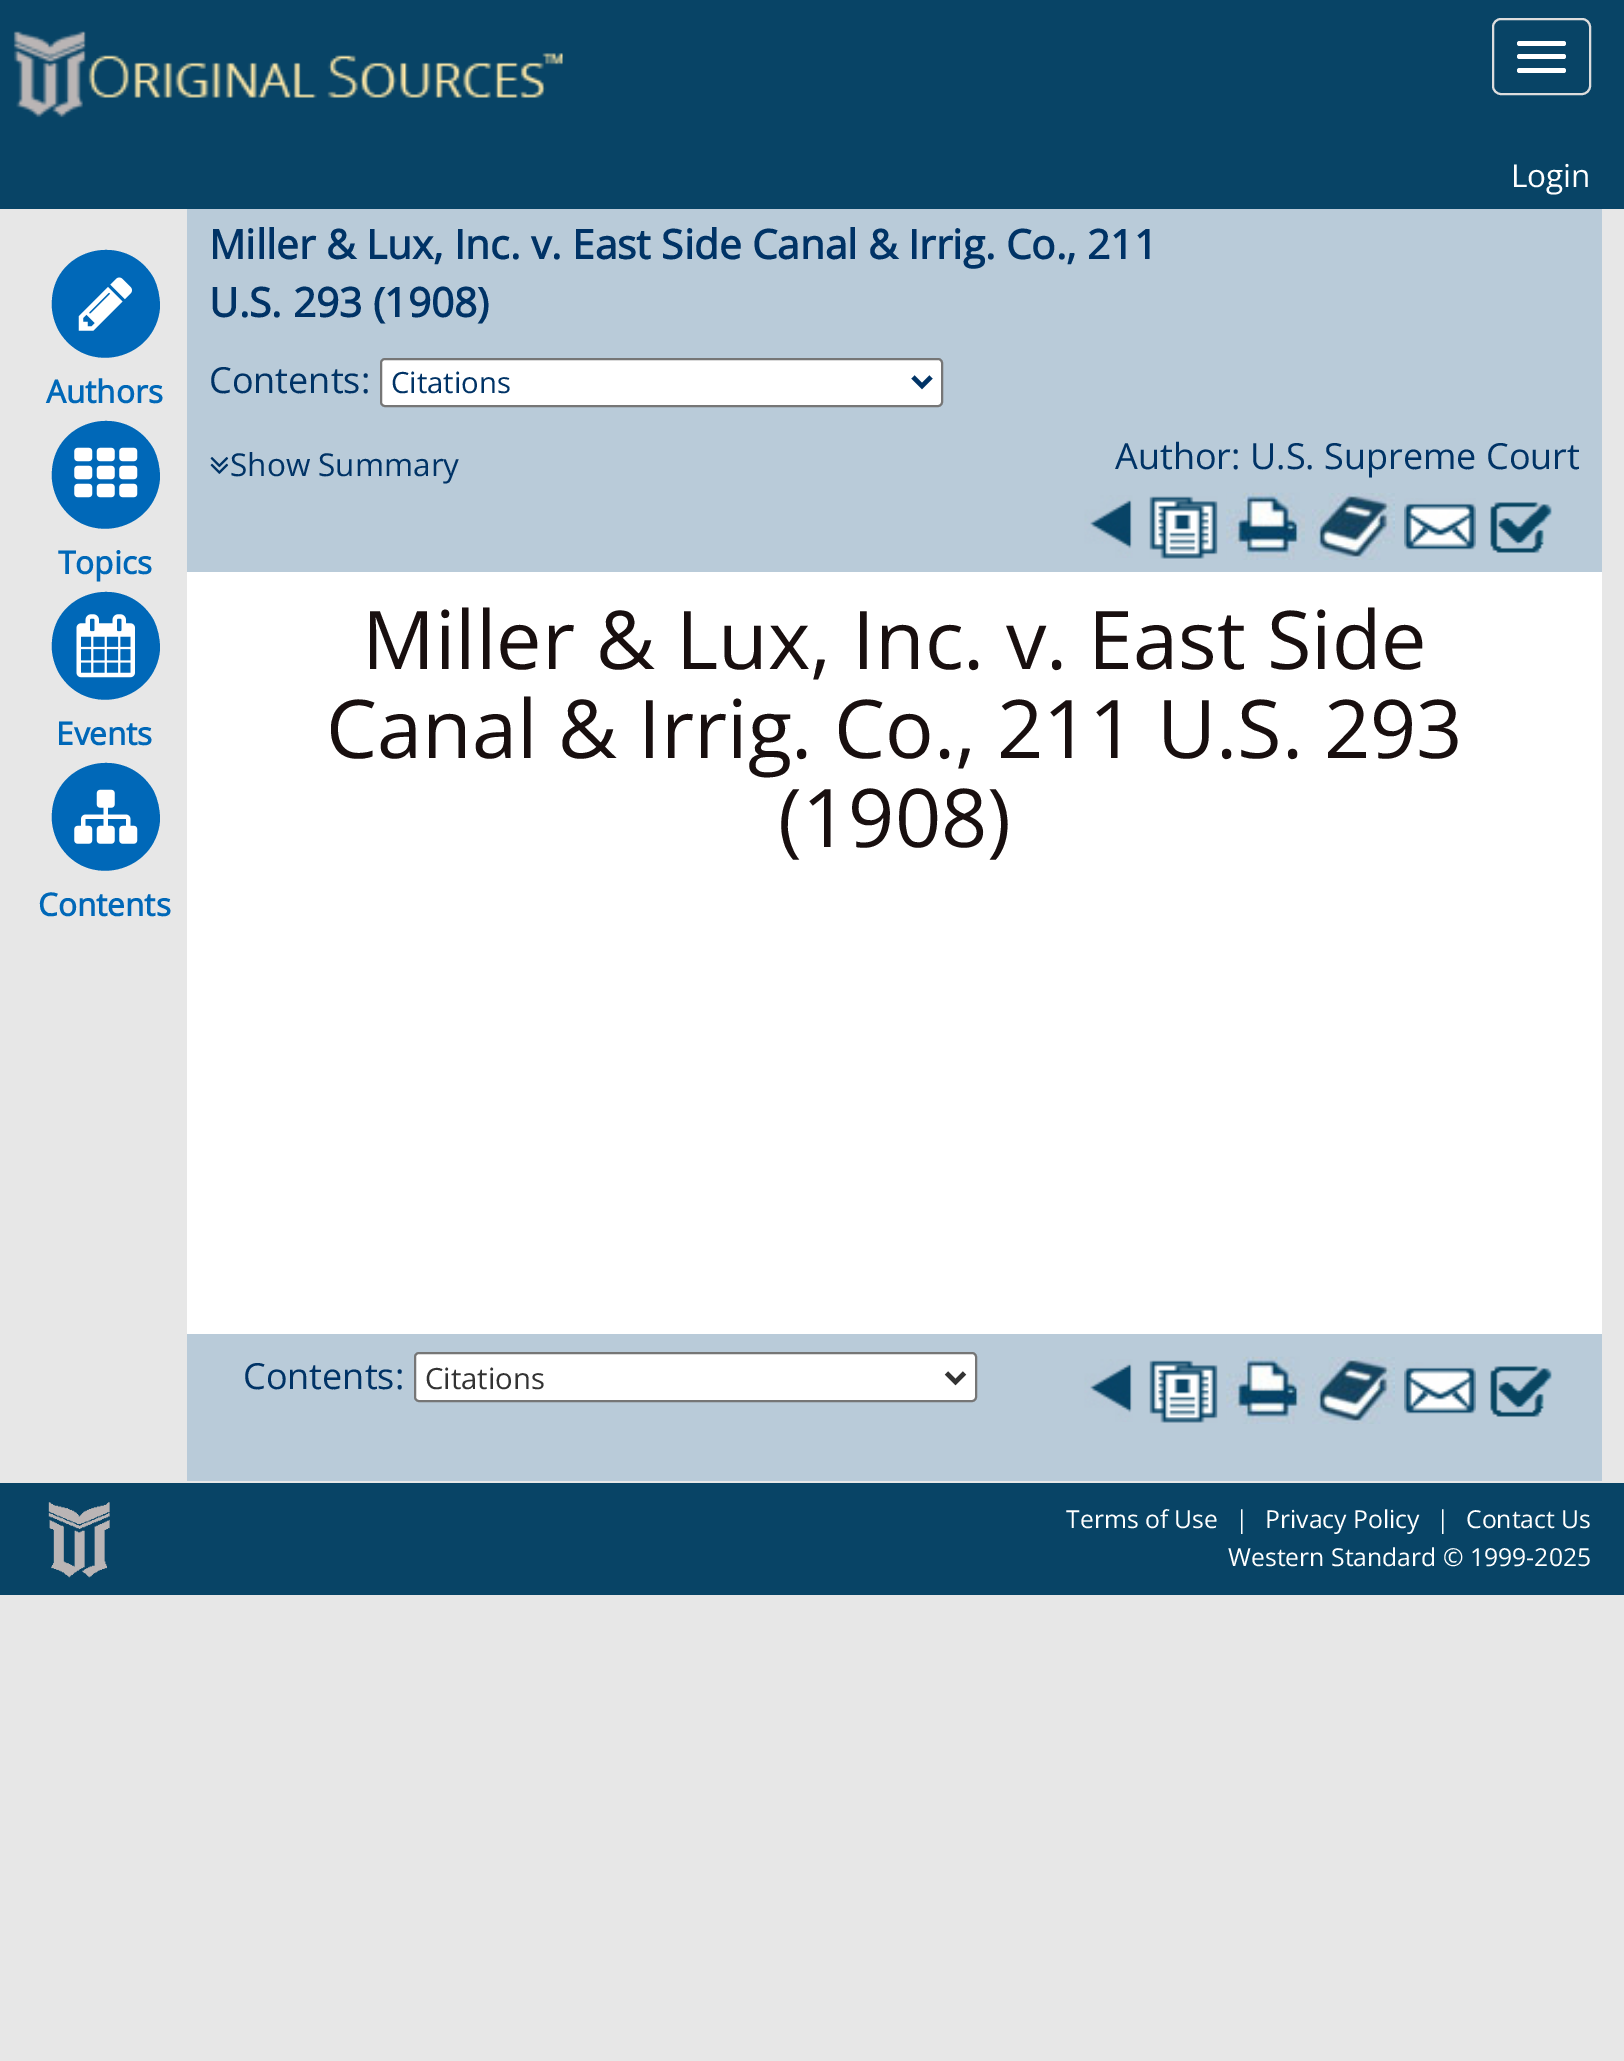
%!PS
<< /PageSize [1624 2061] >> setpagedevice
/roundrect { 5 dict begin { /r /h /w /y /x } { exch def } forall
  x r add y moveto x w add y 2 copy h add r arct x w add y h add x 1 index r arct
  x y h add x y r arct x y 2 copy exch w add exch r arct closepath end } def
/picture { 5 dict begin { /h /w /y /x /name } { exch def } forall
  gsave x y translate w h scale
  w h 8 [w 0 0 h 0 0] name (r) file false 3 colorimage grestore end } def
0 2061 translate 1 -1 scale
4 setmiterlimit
0.906 setgray
0 0 1624 2061 rectfill
0.031 0.267 0.4 setrgbcolor
0 0 1624 209 rectfill
(img1.rgb) 13 31 550 87 picture
0.867 setgray
2 setlinewidth
1493 19 97 75 8 roundrect stroke
1 setgray
1517 41 49 5 2.5 roundrect fill
1517 54 49 5 2.5 roundrect fill
1517 68 49 5 2.5 roundrect fill
/OpenSans-Regular [31.5 0 0 -31.5 0 0] selectfont
1511 187 moveto (Login) show
0 0.408 0.722 setrgbcolor
newpath 153 277 moveto 158 286 160 297 160 307 curveto 156 360 86 377 59 331 curveto 54 322 51 311 52 300 curveto 55 247 126 231 153 277 curveto closepath fill
(img2.rgb) 78 277 54 54 picture
/OpenSans-Bold [31.5 0 0 -31.5 0 0] selectfont
46 403 moveto (Authors) show
newpath 153 448 moveto 158 457 160 468 160 478 curveto 156 531 86 548 59 502 curveto 54 493 51 482 52 471 curveto 55 418 126 402 153 448 curveto closepath fill
(img3.rgb) 74 447 64 51 picture
58 574 moveto (Topics) show
newpath 153 619 moveto 158 628 160 639 160 649 curveto 156 702 86 719 59 673 curveto 54 664 51 653 52 642 curveto 55 589 126 573 153 619 curveto closepath fill
(img4.rgb) 76 614 59 64 picture
56 745 moveto (Events) show
newpath 153 790 moveto 158 799 160 810 160 820 curveto 156 873 86 890 59 844 curveto 54 835 51 824 52 813 curveto 55 760 126 744 153 790 curveto closepath fill
(img5.rgb) 74 789 64 55 picture
38 916 moveto (Contents) show
1 setgray
187 572 1415 762 rectfill
0.725 0.796 0.851 setrgbcolor
187 209 1415 363 rectfill
/OpenSans-Bold [40.5 0 0 -40.5 0 0] selectfont
0 0.2 0.4 setrgbcolor
209 259 moveto (Miller & Lux, Inc. v. East Side Canal & Irrig. Co., 211) show
209 317 moveto (U.S. 293 \(1908\)) show
/OpenSans-Regular [36 0 0 -36 0 0] selectfont
209 393 moveto (Contents:) show
1 setgray
381 359 561 47 4 roundrect gsave fill grestore
0.463 setgray
stroke
0 0.2 0.4 setrgbcolor
4.5 setlinewidth
newpath 913 377 moveto 922 386 lineto 931 377 lineto stroke
/OpenSans-Regular [29.25 0 0 -29.25 0 0] selectfont
391 393 moveto (Citations) show
(img6.rgb) 210 457 19 17 picture
/OpenSans-Regular [31.5 0 0 -31.5 0 0] selectfont
230 476 moveto (Show Summary) show
/OpenSans-Regular [36 0 0 -36 0 0] selectfont
1115 469 moveto (Author: U.S. Supreme Court) show
(img7.rgb) 1084 495 49 63 picture
(img8.rgb) 1149 496 69 63 picture
(img9.rgb) 1226 492 79 68 picture
(img10.rgb) 1312 493 83 67 picture
(img11.rgb) 1404 498 72 52 picture
(img12.rgb) 1490 501 62 53 picture
/OpenSans-Regular [81 0 0 -81 0 0] selectfont
0.094 0.059 0.059 setrgbcolor
362 669 moveto (Miller & Lux, Inc. v. East Side) show
326 758 moveto (Canal & Irrig. Co., 211 U.S. 293) show
778 847 moveto (\(1908\)) show
0.725 0.796 0.851 setrgbcolor
187 1334 1415 147 rectfill
/OpenSans-Regular [36 0 0 -36 0 0] selectfont
0 0.2 0.4 setrgbcolor
243 1389 moveto (Contents:) show
1 setgray
415 1353 561 48 4 roundrect gsave fill grestore
0.463 setgray
2 setlinewidth
stroke
0.2 setgray
4.5 setlinewidth
newpath 946.5 1373 moveto 955.5 1382 lineto 964.5 1373 lineto stroke
/OpenSans-Regular [29.25 0 0 -29.25 0 0] selectfont
425 1389 moveto (Citations) show
(img13.rgb) 1084 1359 49 63 picture
(img8.rgb) 1149 1360 69 63 picture
(img14.rgb) 1226 1356 79 68 picture
(img15.rgb) 1312 1357 83 67 picture
(img11.rgb) 1404 1362 72 52 picture
(img12.rgb) 1490 1365 62 53 picture
0.031 0.267 0.4 setrgbcolor
0 1483 1624 112 rectfill
(img16.rgb) 48 1502 62 76 picture
/OpenSans-Regular [24.75 0 0 -24.75 0 0] selectfont
1 setgray
1066 1528 moveto (Terms of Use) show
1235 1528 moveto (|) show
1265 1528 moveto (Privacy Policy) show
1436 1528 moveto (|) show
1466 1528 moveto (Contact Us) show
1228 1566 moveto (Western Standard © 1999-2025) show
showpage
